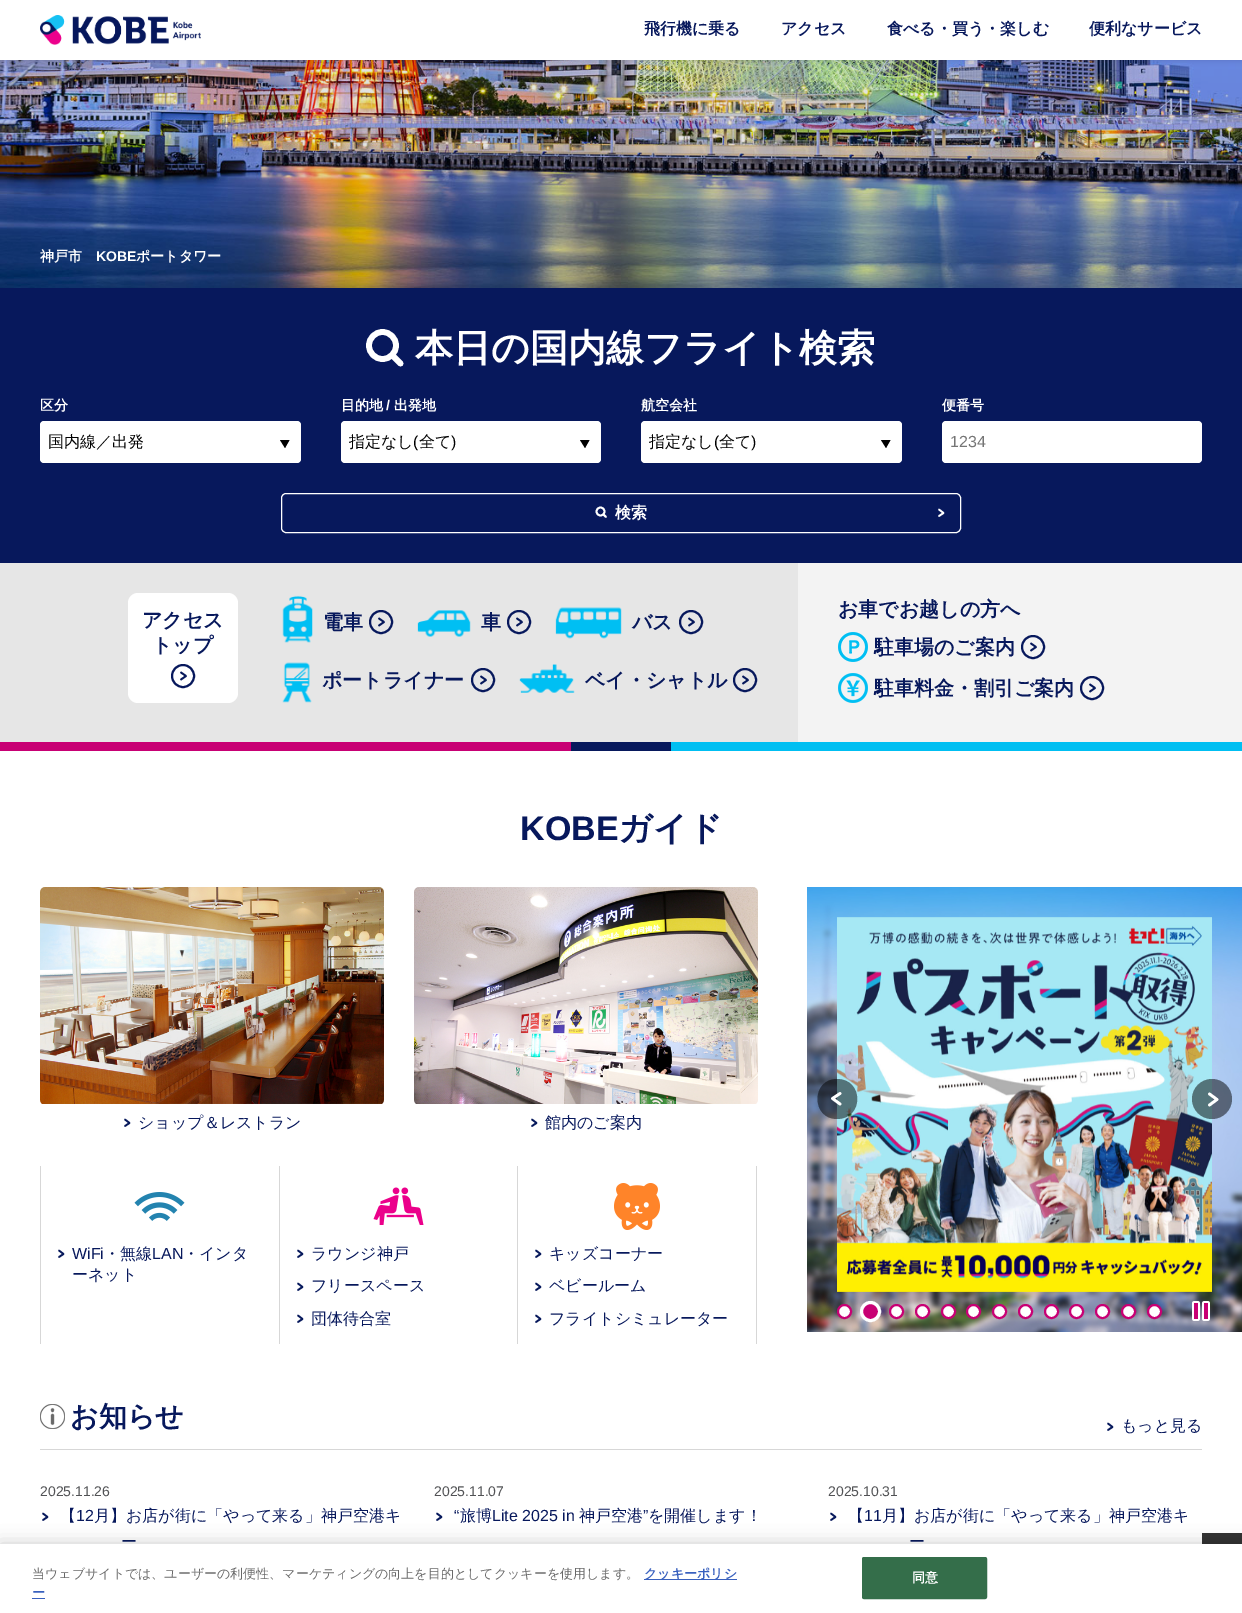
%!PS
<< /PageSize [1242 1613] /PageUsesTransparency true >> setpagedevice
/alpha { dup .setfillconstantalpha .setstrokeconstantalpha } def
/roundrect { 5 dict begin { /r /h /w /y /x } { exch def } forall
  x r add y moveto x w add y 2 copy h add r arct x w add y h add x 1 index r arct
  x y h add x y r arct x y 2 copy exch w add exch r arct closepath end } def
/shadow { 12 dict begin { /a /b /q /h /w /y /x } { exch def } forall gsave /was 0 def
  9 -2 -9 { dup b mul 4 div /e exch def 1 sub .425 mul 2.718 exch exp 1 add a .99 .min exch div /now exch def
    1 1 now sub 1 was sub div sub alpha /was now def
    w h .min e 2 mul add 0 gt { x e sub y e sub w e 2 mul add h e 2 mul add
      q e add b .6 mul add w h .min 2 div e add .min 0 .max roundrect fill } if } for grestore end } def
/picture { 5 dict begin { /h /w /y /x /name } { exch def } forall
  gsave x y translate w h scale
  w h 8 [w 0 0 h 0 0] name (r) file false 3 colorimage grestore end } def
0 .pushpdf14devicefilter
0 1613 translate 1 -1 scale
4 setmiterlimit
1 setgray
0 0 1242 1613 rectfill
(img3.rgb) 0 60 1242 228 picture
0 setgray
0 -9 1242 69 0 3 0.15 shadow
1 setgray
0 0 1242 60 rectfill
(img1.rgb) 40 15 129 30 picture
(img2.rgb) 172 21 29 20 picture
/WenQuanYiZenHei-Bold [16 0 0 -16 0 0] selectfont
0.027 0.094 0.361 setrgbcolor
644 34 moveto (飛行機に乗る) show
781 34 moveto (アクセス) show
887 34 moveto (食べる・買う・楽しむ) show
1089 34 moveto (便利なサービス) show
/WenQuanYiZenHei-Bold [14 0 0 -14 0 0] selectfont
1 setgray
40 261 moveto (神戸市) show
/LiberationSans-Bold [14 0 0 -14 0 0] selectfont
96 261 moveto (KOBE) show
/WenQuanYiZenHei-Bold [14 0 0 -14 0 0] selectfont
136 261 moveto (ポートタワー) show
0.027 0.094 0.361 setrgbcolor
0 288 1242 275 rectfill
1 setgray
5.7 setlinewidth
newpath 382.5 345.5 13.5 0 360 arc closepath stroke
1 setlinecap
newpath 393 356 moveto 400.5 363.5 lineto stroke
/WenQuanYiZenHei-Bold [38 0 0 -38 0 0] selectfont
415 361 moveto (本日の国内線フライト検索) show
/WenQuanYiZenHei-Bold [14 0 0 -14 0 0] selectfont
40 410 moveto (区分) show
40 421 261 42 4 roundrect fill
0 setgray
newpath 285 448 moveto 289.5 440 lineto 280 440 lineto closepath fill
/WenQuanYiZenHei-Medium [16 0 0 -16 0 0] selectfont
48 447 moveto (国内線／出発) show
/WenQuanYiZenHei-Bold [14 0 0 -14 0 0] selectfont
1 setgray
341 410 moveto (目的地) show
/LiberationSans-Bold [14 0 0 -14 0 0] selectfont
386 410 moveto (/) show
/WenQuanYiZenHei-Bold [14 0 0 -14 0 0] selectfont
394 410 moveto (出発地) show
341 421 260 42 4 roundrect fill
0 setgray
newpath 585 448 moveto 589.5 440 lineto 580 440 lineto closepath fill
gsave
349 433 228 18 rectclip
/WenQuanYiZenHei-Medium [16 0 0 -16 0 0] selectfont
349 447 moveto (指定なし) show
grestore
/LiberationSans-Regular [16 0 0 -16 0 0] selectfont
413 447 moveto (\() show
/WenQuanYiZenHei-Medium [16 0 0 -16 0 0] selectfont
419 447 moveto (全て) show
/LiberationSans-Regular [16 0 0 -16 0 0] selectfont
451 447 moveto (\)) show
/WenQuanYiZenHei-Bold [14 0 0 -14 0 0] selectfont
1 setgray
641 410 moveto (航空会社) show
641 421 261 42 4 roundrect fill
0 setgray
newpath 886 448 moveto 890.5 440 lineto 881 440 lineto closepath fill
/WenQuanYiZenHei-Medium [16 0 0 -16 0 0] selectfont
649 447 moveto (指定なし) show
/LiberationSans-Regular [16 0 0 -16 0 0] selectfont
714 447 moveto (\() show
/WenQuanYiZenHei-Medium [16 0 0 -16 0 0] selectfont
719 447 moveto (全て) show
/LiberationSans-Regular [16 0 0 -16 0 0] selectfont
751 447 moveto (\)) show
/WenQuanYiZenHei-Bold [14 0 0 -14 0 0] selectfont
1 setgray
942 410 moveto (便番号) show
942 421 260 42 4 roundrect fill
/LiberationSans-Regular [16 0 0 -16 0 0] selectfont
0.459 setgray
950 447 moveto (1234) show
1 setgray
1 setlinewidth
0 setlinecap
281.5 493.5 679 39 4.5 roundrect stroke
1.8 setlinewidth
newpath 600.5 511.5 4 0 360 arc closepath stroke
1 setlinecap
newpath 603.5 514.5 moveto 606 517 lineto stroke
/WenQuanYiZenHei-Bold [16 0 0 -16 0 0] selectfont
615 518 moveto (検索) show
1.7 setlinewidth
1 setlinejoin
newpath 939 509.5 moveto 943.5 513 lineto 939 516 lineto stroke
0.902 setgray
0 563 798 179 rectfill
0.784 0 0.455 setrgbcolor
0 742 571 9 rectfill
1 setgray
128 593 110 110 10 roundrect fill
/WenQuanYiZenHei-Bold [20 0 0 -20 0 0] selectfont
0.027 0.094 0.361 setrgbcolor
142 627 moveto (アクセス) show
152 652 moveto (トップ) show
0.027 0.098 0.361 setrgbcolor
1.8 setlinewidth
newpath 181 672.5 moveto 186 676 lineto 181 679.5 lineto stroke
0.027 0.094 0.361 setrgbcolor
2 setlinewidth
0 setlinecap
0 setlinejoin
newpath 183 676 11 0 360 arc closepath stroke
(img4.rgb) 282 595 31 48 picture
323 629 moveto (電車) show
0.027 0.098 0.361 setrgbcolor
1.8 setlinewidth
1 setlinecap
1 setlinejoin
newpath 379 618.5 moveto 384 622 lineto 379 625.5 lineto stroke
0.027 0.094 0.361 setrgbcolor
2 setlinewidth
0 setlinecap
0 setlinejoin
newpath 381 622 11 0 360 arc closepath stroke
(img5.rgb) 417 610 54 27 picture
481 629 moveto (車) show
0.027 0.098 0.361 setrgbcolor
1.8 setlinewidth
1 setlinecap
1 setlinejoin
newpath 517 618.5 moveto 522 622 lineto 517 625.5 lineto stroke
0.027 0.094 0.361 setrgbcolor
2 setlinewidth
0 setlinecap
0 setlinejoin
newpath 519 622 11 0 360 arc closepath stroke
(img6.rgb) 555 607 67 32 picture
632 629 moveto (バス) show
0.027 0.098 0.361 setrgbcolor
1.8 setlinewidth
1 setlinecap
1 setlinejoin
newpath 689 618.5 moveto 694 622 lineto 689 625.5 lineto stroke
0.027 0.094 0.361 setrgbcolor
2 setlinewidth
0 setlinecap
0 setlinejoin
newpath 691 622 11 0 360 arc closepath stroke
(img7.rgb) 282 662 30 41 picture
322 687 moveto (ポートライナー) show
0.027 0.098 0.361 setrgbcolor
1.8 setlinewidth
1 setlinecap
1 setlinejoin
newpath 481 676.5 moveto 486 680 lineto 481 683.5 lineto stroke
0.027 0.094 0.361 setrgbcolor
2 setlinewidth
0 setlinecap
0 setlinejoin
newpath 483 680 11 0 360 arc closepath stroke
(img8.rgb) 519 664 56 29 picture
585 687 moveto (ベイ・シャトル) show
0.027 0.098 0.361 setrgbcolor
1.8 setlinewidth
1 setlinecap
1 setlinejoin
newpath 743 676.5 moveto 748 680 lineto 743 683.5 lineto stroke
0.027 0.094 0.361 setrgbcolor
2 setlinewidth
0 setlinecap
0 setlinejoin
newpath 745 680 11 0 360 arc closepath stroke
0.953 setgray
798 563 444 179 rectfill
0.027 0.094 0.361 setrgbcolor
838 616 moveto (お車でお越しの方へ) show
(img9.rgb) 838 632 30 30 picture
874 654 moveto (駐車場のご案内) show
0.027 0.098 0.361 setrgbcolor
1.8 setlinewidth
1 setlinecap
1 setlinejoin
newpath 1031 643.5 moveto 1036 647 lineto 1031 650.5 lineto stroke
0.027 0.094 0.361 setrgbcolor
2 setlinewidth
0 setlinecap
0 setlinejoin
newpath 1033 647 11 0 360 arc closepath stroke
(img10.rgb) 838 673 30 30 picture
874 695 moveto (駐車料金・割引ご案内) show
0.027 0.098 0.361 setrgbcolor
1.8 setlinewidth
1 setlinecap
1 setlinejoin
newpath 1090 684.5 moveto 1095 688 lineto 1090 691.5 lineto stroke
0.027 0.094 0.361 setrgbcolor
2 setlinewidth
0 setlinecap
0 setlinejoin
newpath 1092 688 11 0 360 arc closepath stroke
571 742 100 9 rectfill
0 0.749 0.949 setrgbcolor
671 742 571 9 rectfill
/LiberationSans-Bold [34 0 0 -34 0 0] selectfont
0.027 0.094 0.361 setrgbcolor
520 840 moveto (KOBE) show
/WenQuanYiZenHei-Bold [34 0 0 -34 0 0] selectfont
618 840 moveto (ガイド) show
(img11.rgb) 40 887 344 217 picture
0.027 0.098 0.361 setrgbcolor
1.7 setlinewidth
1 setlinecap
1 setlinejoin
newpath 125 1119.5 moveto 129.5 1123 lineto 125 1126 lineto stroke
/WenQuanYiZenHei-Medium [16 0 0 -16 0 0] selectfont
0.027 0.094 0.361 setrgbcolor
138 1128 moveto (ショップ＆レストラン) show
(img12.rgb) 414 887 344 217 picture
0.027 0.098 0.361 setrgbcolor
newpath 532 1119.5 moveto 536.5 1123 lineto 532 1126 lineto stroke
0.027 0.094 0.361 setrgbcolor
545 1128 moveto (館内のご案内) show
(img13.rgb) 807 887 435 445 picture
(img14.rgb) 837 917 375 375 picture
0.5 alpha
0 setgray
newpath 837 1119 moveto 811 1119 811 1079 837 1079 curveto 864 1079 864 1119 837 1119 curveto closepath fill
1 alpha
1 setgray
2.7 setlinewidth
newpath 840 1104 moveto 832.5 1098.5 lineto 840 1093.5 lineto stroke
0.5 alpha
0 setgray
newpath 1212 1099 20 0 360 arc closepath fill
1 alpha
1 setgray
newpath 1209.5 1094 moveto 1217 1099.5 lineto 1209.5 1105 lineto stroke
newpath 844.5 1311.5 6.5 0 360 arc closepath gsave fill grestore
0.784 0 0.455 setrgbcolor
2 setlinewidth
0 setlinecap
0 setlinejoin
stroke
newpath 870.5 1311.5 9 0 360 arc closepath gsave fill grestore
1 setgray
3 setlinewidth
stroke
newpath 896.5 1311.5 6.5 0 360 arc closepath gsave fill grestore
0.784 0 0.455 setrgbcolor
2 setlinewidth
stroke
1 setgray
newpath 922.5 1311.5 6.5 0 360 arc closepath gsave fill grestore
0.784 0 0.455 setrgbcolor
stroke
1 setgray
newpath 948.5 1311.5 6.5 0 360 arc closepath gsave fill grestore
0.784 0 0.455 setrgbcolor
stroke
1 setgray
newpath 973.5 1311.5 6.5 0 360 arc closepath gsave fill grestore
0.784 0 0.455 setrgbcolor
stroke
1 setgray
newpath 999.5 1311.5 6.5 0 360 arc closepath gsave fill grestore
0.784 0 0.455 setrgbcolor
stroke
1 setgray
newpath 1025.5 1311.5 6.5 0 360 arc closepath gsave fill grestore
0.784 0 0.455 setrgbcolor
stroke
1 setgray
newpath 1051.5 1311.5 6.5 0 360 arc closepath gsave fill grestore
0.784 0 0.455 setrgbcolor
stroke
1 setgray
newpath 1076.5 1311.5 6.5 0 360 arc closepath gsave fill grestore
0.784 0 0.455 setrgbcolor
stroke
1 setgray
newpath 1102.5 1311.5 6.5 0 360 arc closepath gsave fill grestore
0.784 0 0.455 setrgbcolor
stroke
1 setgray
newpath 1128.5 1311.5 6.5 0 360 arc closepath gsave fill grestore
0.784 0 0.455 setrgbcolor
stroke
1 setgray
newpath 1154.5 1311.5 6.5 0 360 arc closepath gsave fill grestore
0.784 0 0.455 setrgbcolor
stroke
(img15.rgb) 1192 1301 18 20 picture
0.843 setgray
40 1166 1 178 rectfill
279 1166 1 178 rectfill
(img16.rgb) 134 1192 51 29 picture
0.027 0.098 0.361 setrgbcolor
1.7 setlinewidth
1 setlinecap
1 setlinejoin
newpath 59 1250.5 moveto 63.5 1254 lineto 59 1257 lineto stroke
/LiberationSans-Regular [16 0 0 -16 0 0] selectfont
0.027 0.094 0.361 setrgbcolor
72 1259 moveto (WiFi) show
/WenQuanYiZenHei-Medium [16 0 0 -16 0 0] selectfont
104 1259 moveto (・無線) show
/LiberationSans-Regular [16 0 0 -16 0 0] selectfont
152 1259 moveto (LAN) show
/WenQuanYiZenHei-Medium [16 0 0 -16 0 0] selectfont
183 1259 moveto (・インタ) show
72 1280 moveto (ーネット) show
0.843 setgray
517 1166 1 178 rectfill
(img17.rgb) 373 1187 51 38 picture
0.027 0.098 0.361 setrgbcolor
newpath 298 1250.5 moveto 302.5 1254 lineto 298 1257 lineto stroke
0.027 0.094 0.361 setrgbcolor
311 1259 moveto (ラウンジ神戸) show
0.027 0.098 0.361 setrgbcolor
newpath 298 1283.5 moveto 302.5 1287 lineto 298 1290 lineto stroke
0.027 0.094 0.361 setrgbcolor
311 1291 moveto (フリースペース) show
0.027 0.098 0.361 setrgbcolor
newpath 298 1315.5 moveto 302.5 1319 lineto 298 1322 lineto stroke
0.027 0.094 0.361 setrgbcolor
311 1324 moveto (団体待合室) show
0.843 setgray
756 1166 1 178 rectfill
(img18.rgb) 614 1183 46 47 picture
0.027 0.098 0.361 setrgbcolor
newpath 536 1250.5 moveto 540.5 1254 lineto 536 1257 lineto stroke
0.027 0.094 0.361 setrgbcolor
549 1259 moveto (キッズコーナー) show
0.027 0.098 0.361 setrgbcolor
newpath 536 1283.5 moveto 540.5 1287 lineto 536 1290 lineto stroke
0.027 0.094 0.361 setrgbcolor
549 1291 moveto (ベビールーム) show
0.027 0.098 0.361 setrgbcolor
newpath 536 1315.5 moveto 540.5 1319 lineto 536 1322 lineto stroke
0.027 0.094 0.361 setrgbcolor
549 1324 moveto (フライトシミュレーター) show
(img19.rgb) 40 1404 25 25 picture
/WenQuanYiZenHei-Bold [28 0 0 -28 0 0] selectfont
70 1426 moveto (お知らせ) show
0.027 0.098 0.361 setrgbcolor
newpath 1108 1423.5 moveto 1112.5 1427 lineto 1108 1430 lineto stroke
/WenQuanYiZenHei-Medium [16 0 0 -16 0 0] selectfont
0.027 0.094 0.361 setrgbcolor
1121 1431 moveto (もっと見る) show
0.843 setgray
40 1449 1162 1 rectfill
/LiberationSans-Regular [14 0 0 -14 0 0] selectfont
0.318 0.322 0.333 setrgbcolor
40 1496 moveto (2025.11.26) show
0.027 0.098 0.361 setrgbcolor
newpath 43 1513.5 moveto 47.5 1517 lineto 43 1520 lineto stroke
/WenQuanYiZenHei-Medium [16 0 0 -16 0 0] selectfont
0.027 0.094 0.361 setrgbcolor
60 1521 moveto (【) show
/LiberationSans-Regular [16 0 0 -16 0 0] selectfont
76 1521 moveto (12) show
/WenQuanYiZenHei-Medium [16 0 0 -16 0 0] selectfont
94 1521 moveto (月】お店が街に「やって来る」神戸空港キ) show
121 1547 moveto (ー) show
/LiberationSans-Regular [14 0 0 -14 0 0] selectfont
0.318 0.322 0.333 setrgbcolor
434 1496 moveto (2025.11.07) show
0.027 0.098 0.361 setrgbcolor
newpath 437 1513.5 moveto 441.5 1517 lineto 437 1520 lineto stroke
/LiberationSans-Regular [16 0 0 -16 0 0] selectfont
0.027 0.094 0.361 setrgbcolor
454 1521 moveto (“) show
/WenQuanYiZenHei-Medium [16 0 0 -16 0 0] selectfont
460 1521 moveto (旅博) show
/LiberationSans-Regular [16 0 0 -16 0 0] selectfont
492 1521 moveto (Lite 2025 in) show
/WenQuanYiZenHei-Medium [16 0 0 -16 0 0] selectfont
579 1521 moveto (神戸空港) show
/LiberationSans-Regular [16 0 0 -16 0 0] selectfont
643 1521 moveto (”) show
/WenQuanYiZenHei-Medium [16 0 0 -16 0 0] selectfont
648 1521 moveto (を開催します！) show
/LiberationSans-Regular [14 0 0 -14 0 0] selectfont
0.318 0.322 0.333 setrgbcolor
828 1496 moveto (2025.10.31) show
0.027 0.098 0.361 setrgbcolor
newpath 831 1513.5 moveto 835.5 1517 lineto 831 1520 lineto stroke
/WenQuanYiZenHei-Medium [16 0 0 -16 0 0] selectfont
0.027 0.094 0.361 setrgbcolor
848 1521 moveto (【) show
/LiberationSans-Regular [16 0 0 -16 0 0] selectfont
864 1521 moveto (11) show
/WenQuanYiZenHei-Medium [16 0 0 -16 0 0] selectfont
882 1521 moveto (月】お店が街に「やって来る」神戸空港キ) show
909 1547 moveto (ー) show
0.2 setgray
1202 1533 40 11 rectfill
0 setgray
0 1544 1242 69 0 9 0.2 shadow
1 setgray
0 1544 1242 69 rectfill
/WenQuanYiZenHei-Medium [13 0 0 -13 0 0] selectfont
0.412 setgray
32 1578 moveto (当ウェブサイトでは、ユーザーの利便性、マーケティングの向上を目的としてクッキーを使用します。) show
0.22 0.376 0.745 setrgbcolor
644 1579 93 1 rectfill
/WenQuanYiZenHei-Bold [13 0 0 -13 0 0] selectfont
644 1578 moveto (クッキーポリシ) show
32 1597 moveto (ー) show
32 1598 13 1 rectfill
0.204 0.431 0.29 setrgbcolor
862.5 1557.5 124 41 1.5 roundrect gsave fill grestore
1 setlinewidth
0 setlinecap
0 setlinejoin
stroke
1 setgray
912 1582 moveto (同意) show
.poppdf14devicefilter showpage
